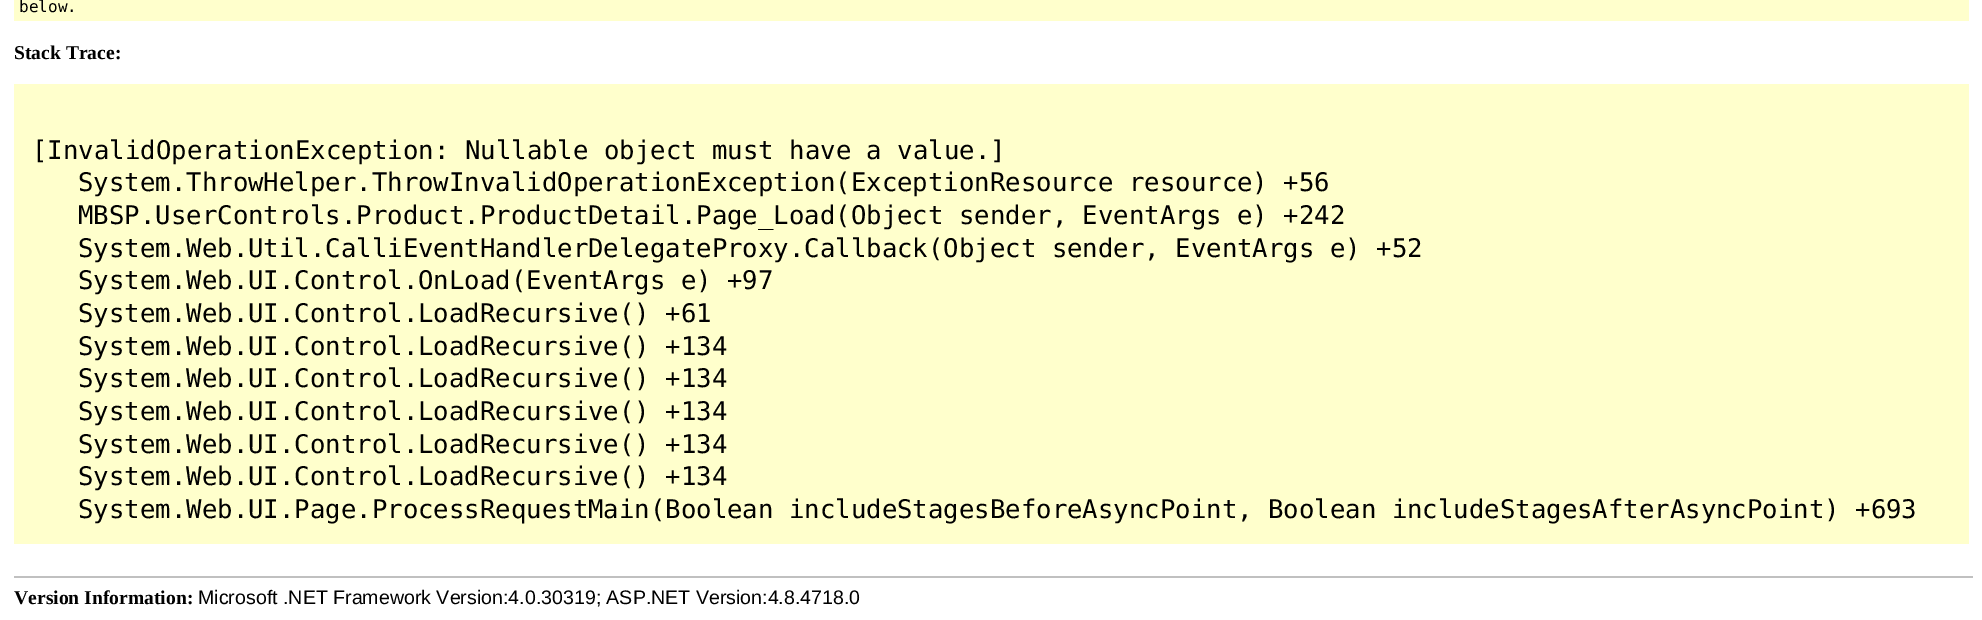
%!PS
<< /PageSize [1982 620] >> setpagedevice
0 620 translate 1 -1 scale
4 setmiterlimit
1 setgray
0 0 1982 620 rectfill
1 1 0.8 setrgbcolor
14 0 1955 21 rectfill
/DejaVuSansMono-Regular [16 0 0 -16 0 0] selectfont
0 setgray
19 12 moveto (below.) show
/LiberationSerif-Bold [19.6 0 0 -19.6 0 0] selectfont
14 59 moveto (Stack Trace:) show
1 1 0.8 setrgbcolor
14 84 1955 460 rectfill
/DejaVuSansMono-Regular [25.67 0 0 -25.67 0 0] selectfont
0 setgray
32 159 moveto ([InvalidOperationException: Nullable object must have a value.]) show
78 191 moveto (System.ThrowHelper.ThrowInvalidOperationException\(ExceptionResource resource\) +56) show
78 224 moveto (MBSP.UserControls.Product.ProductDetail.Page_Load\(Object sender, EventArgs e\) +242) show
78 257 moveto (System.Web.Util.CalliEventHandlerDelegateProxy.Callback\(Object sender, EventArgs e\) +52) show
78 289 moveto (System.Web.UI.Control.OnLoad\(EventArgs e\) +97) show
78 322 moveto (System.Web.UI.Control.LoadRecursive\(\) +61) show
78 355 moveto (System.Web.UI.Control.LoadRecursive\(\) +134) show
78 387 moveto (System.Web.UI.Control.LoadRecursive\(\) +134) show
78 420 moveto (System.Web.UI.Control.LoadRecursive\(\) +134) show
78 453 moveto (System.Web.UI.Control.LoadRecursive\(\) +134) show
78 485 moveto (System.Web.UI.Control.LoadRecursive\(\) +134) show
78 518 moveto (System.Web.UI.Page.ProcessRequestMain\(Boolean includeStagesBeforeAsyncPoint, Boolean includeStagesAfterAsyncPoint\) +693) show
0.753 setgray
14 576 1959 2 rectfill
/LiberationSerif-Bold [19.6 0 0 -19.6 0 0] selectfont
0 setgray
14 604 moveto (Version Information:) show
/LiberationSans-Regular [19.6 0 0 -19.6 0 0] selectfont
198 604 moveto (Microsoft .NET Framework Version:4.0.30319; ASP.NET Version:4.8.4718.0) show
showpage
